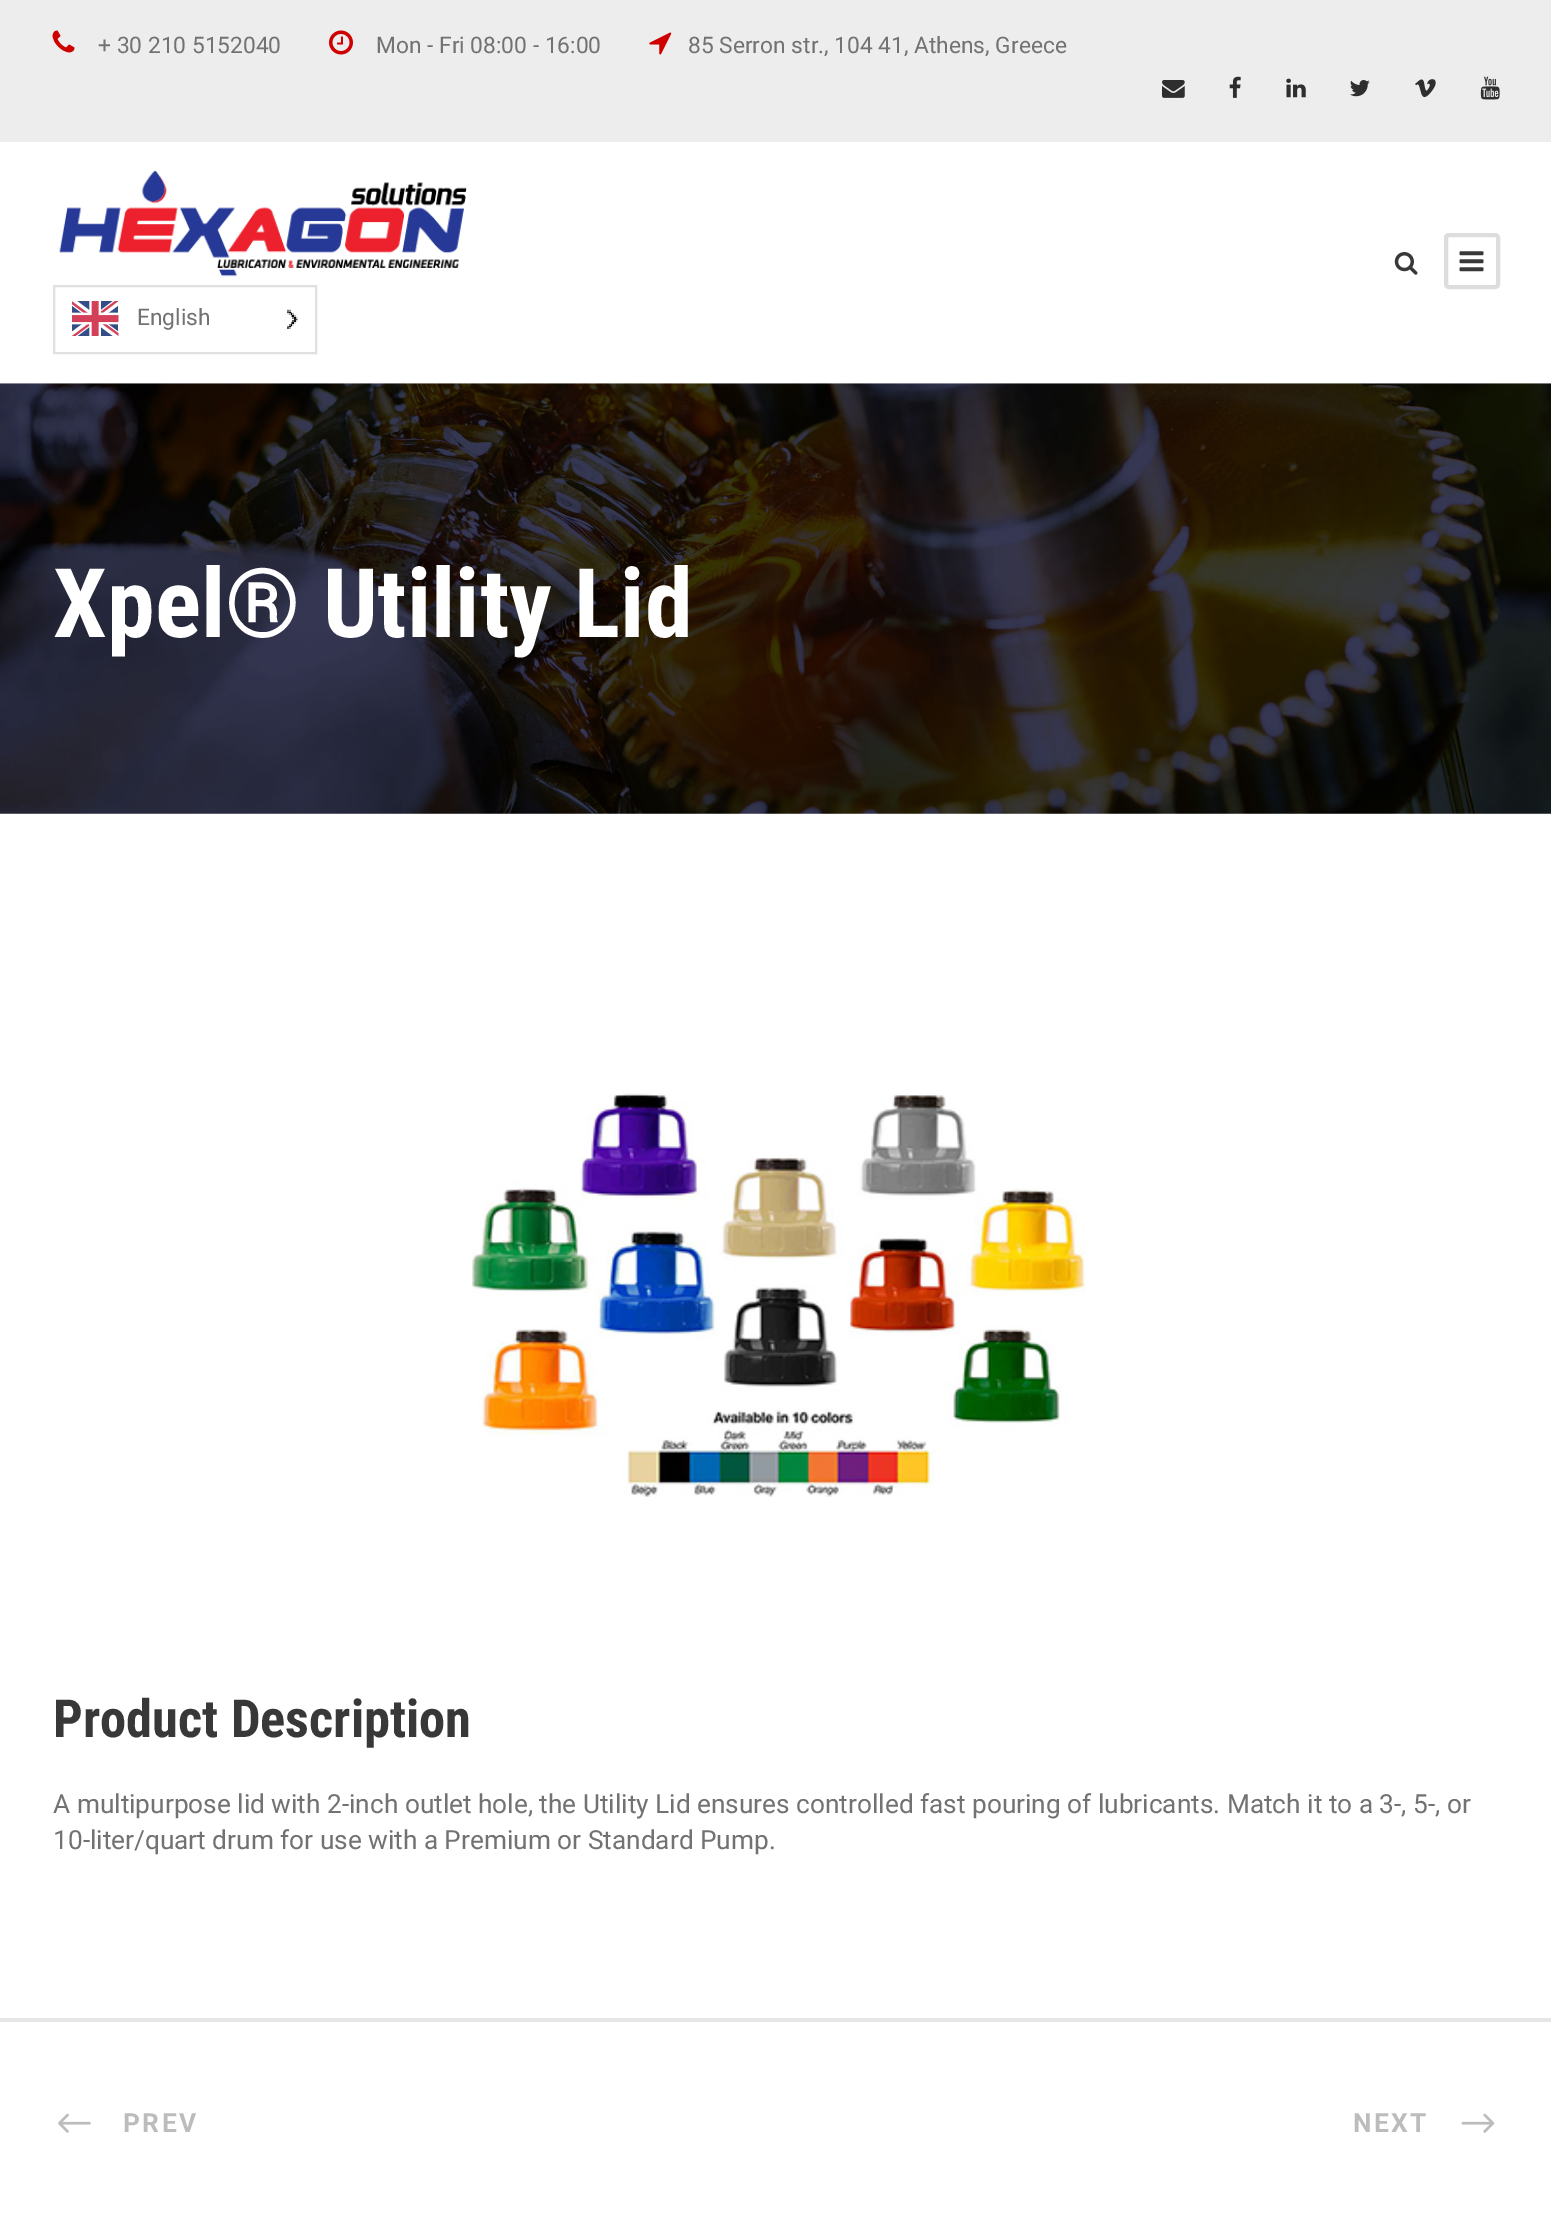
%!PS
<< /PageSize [1551 2213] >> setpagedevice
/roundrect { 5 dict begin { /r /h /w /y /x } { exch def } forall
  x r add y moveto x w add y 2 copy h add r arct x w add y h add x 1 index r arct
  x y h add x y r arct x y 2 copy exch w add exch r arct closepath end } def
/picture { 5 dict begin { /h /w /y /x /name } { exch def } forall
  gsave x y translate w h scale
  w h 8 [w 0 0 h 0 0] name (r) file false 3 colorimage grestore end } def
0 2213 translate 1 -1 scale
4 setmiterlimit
1 setgray
0 0 1551 2213 rectfill
0.929 setgray
0 0 1551 142 rectfill
(img1.rgb) 52 30 23 23 picture
/Roboto-Regular [22.75 0 0 -22.75 0 0] selectfont
0.447 setgray
98 53 moveto (+ 30 210 5152040) show
(img2.rgb) 329 30 24 25 picture
376 53 moveto (Mon - Fri 08:00 - 16:00) show
(img3.rgb) 649 32 23 23 picture
688 53 moveto (85 Serron str., 104 41, Athens, Greece) show
(img4.rgb) 1162 80 23 18 picture
(img5.rgb) 1229 76 12 22 picture
(img6.rgb) 1286 78 20 20 picture
(img7.rgb) 1350 80 20 17 picture
(img8.rgb) 1415 79 21 19 picture
(img9.rgb) 1480 76 20 24 picture
(img10.rgb) 1394 252 24 23 picture
0.867 setgray
4 setlinewidth
1446 235 52 52 3 roundrect stroke
(img11.rgb) 1459 251 25 21 picture
(img12.rgb) 59 170 408 107 picture
0.878 setgray
2 setlinewidth
54 286 262 67 rectstroke
(img13.rgb) 72 301 47 35 picture
0.447 setgray
137 325 moveto (English) show
(img14.rgb) 287 309 11 20 picture
(img15.rgb) 0 383 1551 431 picture
/RobotoCondensed-Bold [96.25 0 0 -96.25 0 0] selectfont
1 setgray
53 637 moveto (Xpel® Utility Lid) show
(img16.rgb) 472 1093 614 404 picture
/RobotoCondensed-Bold [52.5 0 0 -52.5 0 0] selectfont
0.22 setgray
53 1737 moveto (Product Description) show
/Roboto-Regular [26.25 0 0 -26.25 0 0] selectfont
0.447 setgray
53 1813 moveto (A multipurpose lid with 2-inch outlet hole, the Utility Lid ensures controlled fast pouring of lubricants. Match it to a 3-, 5-, or) show
53 1849 moveto (10-liter/quart drum for use with a Premium or Standard Pump.) show
0.902 setgray
0 2018 1551 4 rectfill
(img17.rgb) 58 2113 33 20 picture
/Roboto-Bold [26.25 0 0 -26.25 0 0] selectfont
0.737 setgray
123 2132 moveto 2.5 0 (PREV) ashow
1353 2132 moveto 2.5 0 (NEXT) ashow
(img18.rgb) 1461 2113 34 20 picture
showpage
